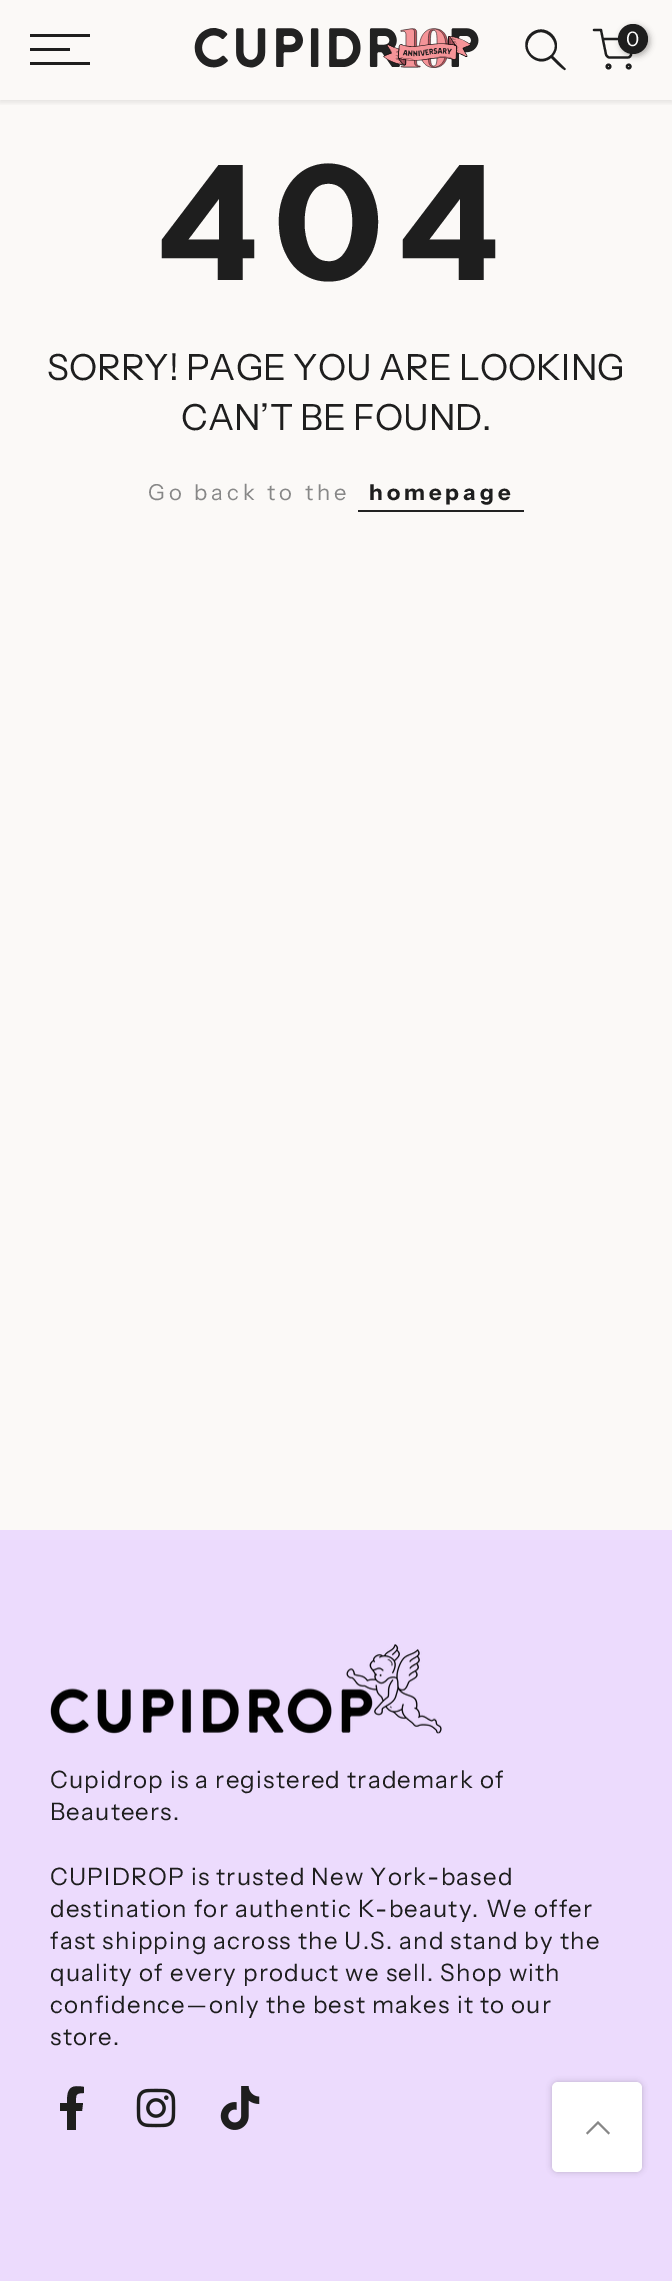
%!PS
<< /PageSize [672 2281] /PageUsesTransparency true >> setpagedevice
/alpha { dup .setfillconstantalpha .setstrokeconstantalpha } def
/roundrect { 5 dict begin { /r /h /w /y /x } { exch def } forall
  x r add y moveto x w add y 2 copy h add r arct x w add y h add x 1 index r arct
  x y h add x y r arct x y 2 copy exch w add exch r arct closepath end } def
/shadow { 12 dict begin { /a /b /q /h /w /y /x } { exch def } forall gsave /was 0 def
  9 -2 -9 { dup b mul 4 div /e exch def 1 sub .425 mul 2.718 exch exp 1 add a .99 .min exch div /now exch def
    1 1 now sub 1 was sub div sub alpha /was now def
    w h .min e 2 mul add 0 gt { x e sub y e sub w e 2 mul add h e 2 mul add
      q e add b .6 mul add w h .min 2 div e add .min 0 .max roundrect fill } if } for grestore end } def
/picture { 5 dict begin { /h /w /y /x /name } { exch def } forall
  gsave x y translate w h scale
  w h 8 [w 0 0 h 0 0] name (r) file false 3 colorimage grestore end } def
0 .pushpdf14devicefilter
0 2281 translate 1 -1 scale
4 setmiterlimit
0.984 0.976 0.969 setrgbcolor
0 0 672 2281 rectfill
gsave
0 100 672 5 rectclip
0 setgray
0 2 672 100 0 3 0.1 shadow
grestore
0.118 setgray
30 34 60 3 rectfill
30 48 40 3 rectfill
30 62 60 3 rectfill
(img1.rgb) 194 28 285 40 picture
newpath 551 55 moveto 538 67 519 49 532 36 curveto 544 24 563 43 551 55 curveto closepath 551 58 moveto 536 70 516 48 530 34 curveto 545 20 566 41 553 56 curveto 566 69 lineto 565 70 lineto 564 71 553 60 551 58 curveto closepath eofill
2.2 setlinewidth
1 setlinecap
1 setlinejoin
newpath 594 30 moveto 601 30 lineto 606 54.5 lineto 606.5 56 608 57.5 609.5 57.5 curveto 627.5 57.5 lineto 629.5 57.5 631 56 631 54.5 curveto 634 39 lineto 603 39 lineto stroke
0 setlinecap
0 setlinejoin
newpath 608.5 66.5 1.8 0 360 arc closepath stroke
newpath 628.7 66.5 1.8 0 360 arc closepath stroke
0 setgray
620 26 30 30 15 3 0.3 shadow
0.118 setgray
newpath 633 39 15 0 360 arc closepath fill
/InstrumentSans-Regular [20 0 0 -20 0 0] selectfont
1 setgray
626 46 moveto (0) show
/InstrumentSans-Bold [160 0 0 -160 0 0] selectfont
0.118 setgray
158 280 moveto 16 0 (404) ashow
/InstrumentSans-Regular [36 0 0 -36 0 0] selectfont
47 380 moveto (SORRY! PAGE YOU ARE LOOKING) show
181 430 moveto (CAN’T BE FOUND.) show
/InstrumentSans-Regular [22 0 0 -22 0 0] selectfont
0.529 setgray
148 500 moveto 4 0 (Go back to the) ashow
/InstrumentSans-Bold [22 0 0 -22 0 0] selectfont
0.118 setgray
369 500 moveto 4 0 (homepage) ashow
0.133 setgray
358 510 166 2 rectfill
0.925 0.859 0.992 setrgbcolor
0 1530 672 751 rectfill
(img2.rgb) 50 1644 392 90 picture
/InstrumentSans-Regular [24 0 0 -24 0 0] selectfont
0.118 setgray
50 1788 moveto 1.2 0 (Cupidrop is a registered trademark of) ashow
50 1820 moveto 1.2 0 (Beauteers.) ashow
50 1885 moveto 1.2 0 (CUPIDROP is trusted New York-based) ashow
50 1917 moveto 1.2 0 (destination for authentic K-beauty. We offer) ashow
50 1949 moveto 1.2 0 (fast shipping across the U.S. and stand by the) ashow
50 1981 moveto 1.2 0 (quality of every product we sell. Shop with) ashow
50 2013 moveto 1.2 0 (confidence—only the best makes it to our) ashow
50 2045 moveto 1.2 0 (store.) ashow
newpath 82 2111 moveto 83 2103 lineto 76 2103 lineto 76 2095 75 2093 84 2093 curveto 84 2087 lineto 69 2084 67 2090 67 2103 curveto 60 2103 lineto 60 2111 lineto 67 2111 lineto 67 2130 lineto 76 2130 lineto 76 2111 lineto closepath fill
(img3.rgb) 136 2088 40 40 picture
(img4.rgb) 220 2086 40 44 picture
0 setgray
552 2082 90 90 6 3 0.2 shadow
1 setgray
552 2082 90 90 6 roundrect fill
0.529 setgray
newpath 599.5 2122.5 moveto 598 2121 lineto 586 2133 lineto 587.5 2134.5 lineto 598 2124 lineto 608.5 2134.5 lineto 610 2133 lineto 604 2127 lineto closepath fill
.poppdf14devicefilter showpage
